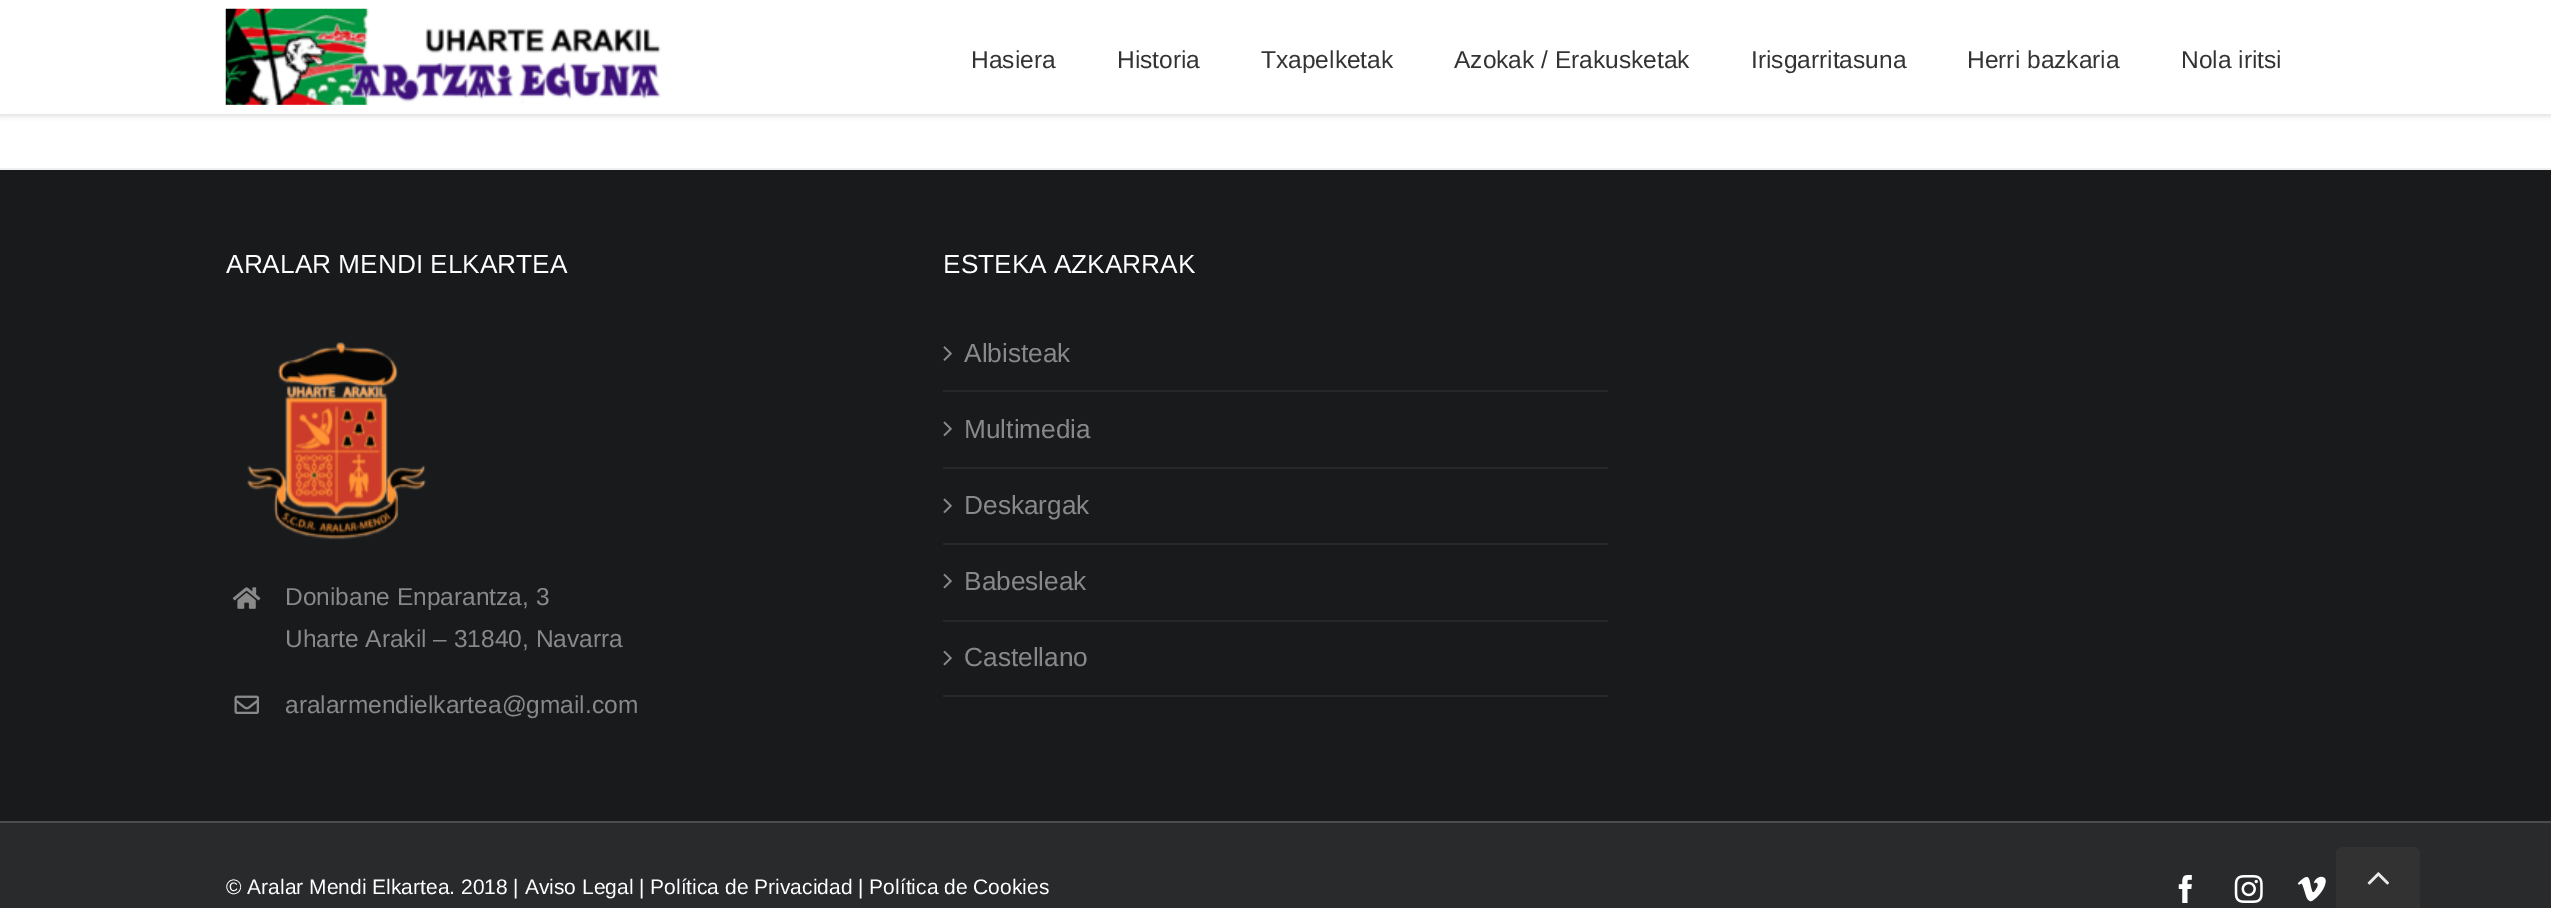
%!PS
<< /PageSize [2551 908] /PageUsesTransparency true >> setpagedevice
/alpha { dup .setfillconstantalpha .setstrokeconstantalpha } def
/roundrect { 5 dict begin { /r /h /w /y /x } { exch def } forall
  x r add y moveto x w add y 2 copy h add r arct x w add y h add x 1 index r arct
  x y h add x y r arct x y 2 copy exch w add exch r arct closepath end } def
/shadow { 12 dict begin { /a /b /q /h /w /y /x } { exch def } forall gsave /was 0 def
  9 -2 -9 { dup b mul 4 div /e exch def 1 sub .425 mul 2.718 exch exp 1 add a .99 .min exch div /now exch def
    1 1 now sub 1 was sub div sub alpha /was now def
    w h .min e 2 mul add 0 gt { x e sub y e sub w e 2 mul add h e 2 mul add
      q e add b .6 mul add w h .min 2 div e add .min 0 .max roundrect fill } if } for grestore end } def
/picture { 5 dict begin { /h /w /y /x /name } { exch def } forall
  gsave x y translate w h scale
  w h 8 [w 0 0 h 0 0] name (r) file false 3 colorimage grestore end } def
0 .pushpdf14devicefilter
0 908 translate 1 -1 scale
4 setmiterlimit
1 setgray
0 0 2551 908 rectfill
0 setgray
0 2 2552 114 0 2.5 0.12 shadow
1 setgray
0 0 2551 114 rectfill
(img1.rgb) 225 8 436 97 picture
/LiberationSans-Regular [24.5 0 0 -24.5 0 0] selectfont
0.2 setgray
971 68 moveto (Hasiera) show
1117 68 moveto (Historia) show
1261 68 moveto (Txapelketak) show
1454 68 moveto (Azokak / Erakusketak) show
1751 68 moveto (Irisgarritasuna) show
1967 68 moveto (Herri bazkaria) show
2181 68 moveto (Nola iritsi) show
0.094 0.102 0.11 setrgbcolor
0 170 2551 651 rectfill
0.937 setgray
0 168 2551 2 rectfill
/LiberationSans-Regular [26.25 0 0 -26.25 0 0] selectfont
1 setgray
226 273 moveto (ARALAR MENDI ELKARTEA) show
(img2.rgb) 247 342 179 198 picture
(img3.rgb) 232 587 29 22 picture
/LiberationSans-Regular [24.5 0 0 -24.5 0 0] selectfont
0.537 setgray
285 605 moveto (Donibane Enparantza, 3) show
285 647 moveto (Uharte Arakil – 31840, Navarra) show
(img4.rgb) 234 695 25 19 picture
285 713 moveto (aralarmendielkartea@gmail.com) show
/LiberationSans-Regular [26.25 0 0 -26.25 0 0] selectfont
1 setgray
943 273 moveto (ESTEKA AZKARRAK) show
0.149 0.153 0.153 setrgbcolor
943 390 665 2 rectfill
(img5.rgb) 943 346 9 15 picture
0.537 setgray
964 362 moveto (Albisteak) show
0.149 0.153 0.153 setrgbcolor
943 467 665 2 rectfill
(img6.rgb) 943 421 9 16 picture
0.537 setgray
964 438 moveto (Multimedia) show
0.149 0.153 0.153 setrgbcolor
943 543 665 2 rectfill
(img6.rgb) 943 498 9 16 picture
0.537 setgray
964 514 moveto (Deskargak) show
0.149 0.153 0.153 setrgbcolor
943 620 665 2 rectfill
(img7.rgb) 943 573 9 16 picture
0.537 setgray
964 590 moveto (Babesleak) show
0.149 0.153 0.153 setrgbcolor
943 695 665 2 rectfill
(img7.rgb) 943 650 9 16 picture
0.537 setgray
964 666 moveto (Castellano) show
0.157 0.165 0.169 setrgbcolor
0 823 2551 85 rectfill
0.294 0.298 0.302 setrgbcolor
0 821 2551 2 rectfill
/LiberationSans-Regular [21 0 0 -21 0 0] selectfont
1 setgray
226 894 moveto (© Aralar Mendi Elkartea. 2018 | Aviso Legal | Política de Privacidad | Política de Cookies) show
(img8.rgb) 2178 875 14 28 picture
(img9.rgb) 2234 875 29 28 picture
(img10.rgb) 2297 876 29 26 picture
0.196 setgray
newpath 2343 847 moveto 2413 847 lineto 2417 847 2420 850 2420 854 curveto 2420 908 lineto 2336 908 lineto 2336 854 lineto 2336 850 2339 847 2343 847 curveto closepath fill
(img11.rgb) 2367 872 22 13 picture
.poppdf14devicefilter showpage
